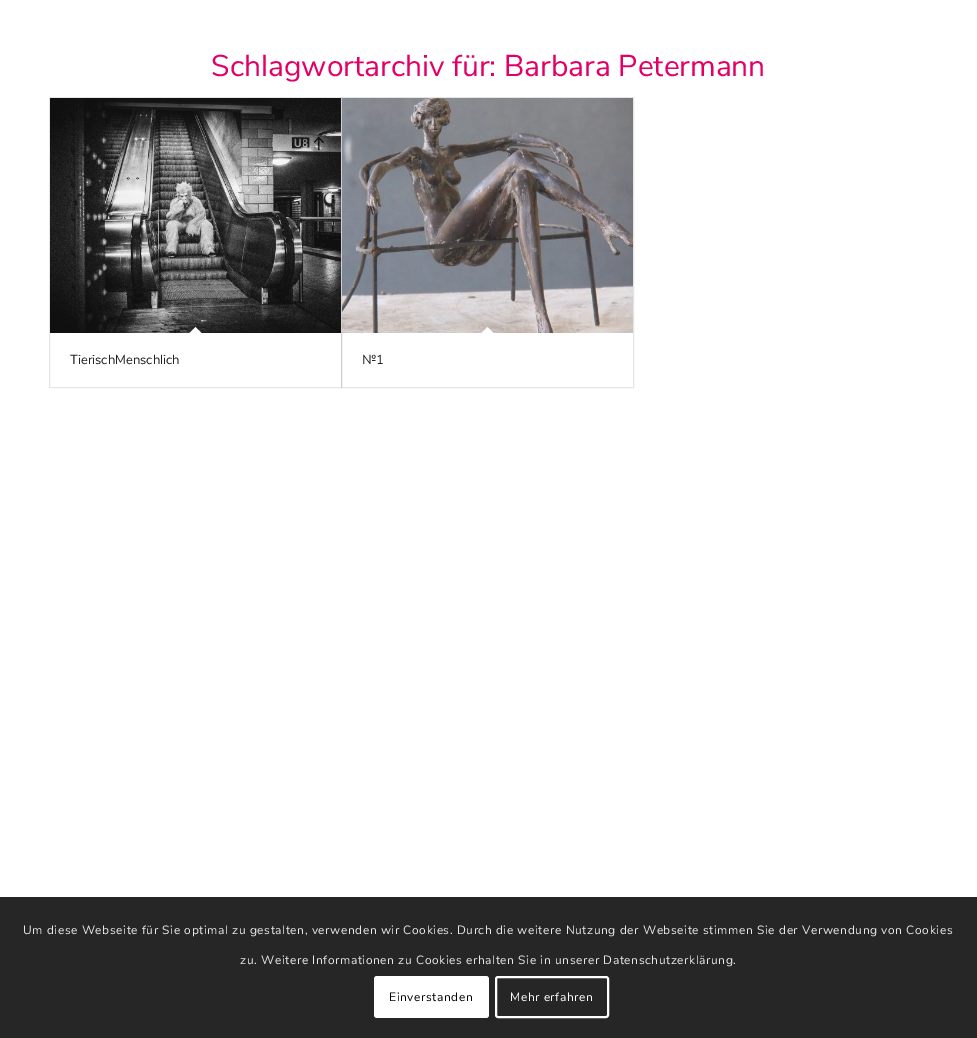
%!PS
<< /PageSize [977 1038] /PageUsesTransparency true >> setpagedevice
/alpha { dup .setfillconstantalpha .setstrokeconstantalpha } def
/roundrect { 5 dict begin { /r /h /w /y /x } { exch def } forall
  x r add y moveto x w add y 2 copy h add r arct x w add y h add x 1 index r arct
  x y h add x y r arct x y 2 copy exch w add exch r arct closepath end } def
/picture { 5 dict begin { /h /w /y /x /name } { exch def } forall
  gsave x y translate w h scale
  w h 8 [w 0 0 h 0 0] name (r) file false 3 colorimage grestore end } def
0 .pushpdf14devicefilter
0 1038 translate 1 -1 scale
4 setmiterlimit
1 setgray
0 0 977 1038 rectfill
/NunitoSans-Regular [30 0 0 -30 0 0] selectfont
0.886 0 0.4 setrgbcolor
211 76 moveto (Schlagwortarchiv für: Barbara Petermann) show
0.902 setgray
49.5 97.5 292 290 rectstroke
(img1.rgb) 50 98 291 235 picture
1 setgray
newpath 195.5 327 moveto 202.5 334 lineto 195.5 341 lineto 188.5 334 lineto closepath fill
/NunitoSans-Regular [13 0 0 -13 0 0] selectfont
0.133 setgray
70 364 moveto (TierischMenschlich) show
0.1 alpha
0 setgray
341.5 97.5 292 290 rectstroke
1 alpha
(img2.rgb) 342 98 291 235 picture
1 setgray
newpath 487.5 327 moveto 494.5 334 lineto 487.5 341 lineto 480.5 334 lineto closepath fill
0.133 setgray
362 364 moveto (№1) show
0.149 setgray
0 897 977 141 rectfill
/NunitoSans-Regular [12 0 0 -12 0 0] selectfont
0.914 setgray
23 934 moveto 0.6 0 (Um diese Webseite für Sie optimal zu gestalten, verwenden wir Cookies. Durch die weitere Nutzung der Webseite stimmen Sie der Verwendung von Cookies) ashow
240 964 moveto 0.6 0 (zu. Weitere Informationen zu Cookies erhalten Sie in unserer Datenschutzerklärung.) ashow
1 setgray
374 976 115 42 3 roundrect fill
0 setgray
389 1001 moveto 0.6 0 (Einverstanden) ashow
1 setgray
2 setlinewidth
496 977 112 40 2 roundrect stroke
510 1001 moveto 0.6 0 (Mehr erfahren) ashow
.poppdf14devicefilter showpage
